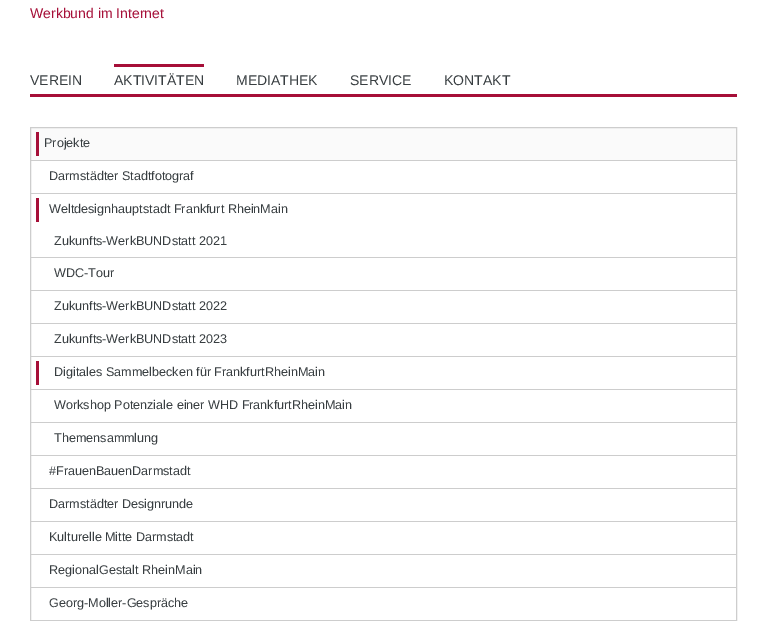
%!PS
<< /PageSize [767 621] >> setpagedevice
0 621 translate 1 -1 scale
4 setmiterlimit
1 setgray
0 0 767 621 rectfill
/LiberationSans-Regular [14 0 0 -14 0 0] selectfont
0.651 0.059 0.22 setrgbcolor
30 18 moveto (Werkbund im Internet) show
30 94 707 3 rectfill
0.22 0.243 0.255 setrgbcolor
30 85 moveto (VEREIN) show
0.651 0.059 0.22 setrgbcolor
114 64 90 3 rectfill
0.22 0.243 0.255 setrgbcolor
114 85 moveto (AKTIVITÄTEN) show
236 85 moveto (MEDIATHEK) show
350 85 moveto (SERVICE) show
444 85 moveto (KONTAKT) show
0.98 setgray
31 128 705 32 rectfill
0.804 setgray
30.5 127.5 706 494 rectstroke
0.651 0.059 0.22 setrgbcolor
36 132 3 24 rectfill
/LiberationSans-Regular [12.6 0 0 -12.6 0 0] selectfont
0.22 0.243 0.255 setrgbcolor
44 147 moveto (Projekte) show
0.804 setgray
31 160 705 1 rectfill
0.22 0.243 0.255 setrgbcolor
49 180 moveto (Darmstädter Stadtfotograf) show
0.804 setgray
31 193 705 1 rectfill
0.651 0.059 0.22 setrgbcolor
36 198 3 24 rectfill
0.22 0.243 0.255 setrgbcolor
49 213 moveto (Weltdesignhauptstadt Frankfurt RheinMain) show
54 245 moveto (Zukunfts-WerkBUNDstatt 2021) show
0.804 setgray
31 257 705 1 rectfill
0.22 0.243 0.255 setrgbcolor
54 277 moveto (WDC-Tour) show
0.804 setgray
31 290 705 1 rectfill
0.22 0.243 0.255 setrgbcolor
54 310 moveto (Zukunfts-WerkBUNDstatt 2022) show
0.804 setgray
31 323 705 1 rectfill
0.22 0.243 0.255 setrgbcolor
54 343 moveto (Zukunfts-WerkBUNDstatt 2023) show
0.804 setgray
31 356 705 1 rectfill
0.651 0.059 0.22 setrgbcolor
36 361 3 24 rectfill
0.22 0.243 0.255 setrgbcolor
54 376 moveto (Digitales Sammelbecken für FrankfurtRheinMain) show
0.804 setgray
31 389 705 1 rectfill
0.22 0.243 0.255 setrgbcolor
54 409 moveto (Workshop Potenziale einer WHD FrankfurtRheinMain) show
0.804 setgray
31 422 705 1 rectfill
0.22 0.243 0.255 setrgbcolor
54 442 moveto (Themensammlung) show
0.804 setgray
31 455 705 1 rectfill
0.22 0.243 0.255 setrgbcolor
49 475 moveto (#FrauenBauenDarmstadt) show
0.804 setgray
31 488 705 1 rectfill
0.22 0.243 0.255 setrgbcolor
49 508 moveto (Darmstädter Designrunde) show
0.804 setgray
31 521 705 1 rectfill
0.22 0.243 0.255 setrgbcolor
49 541 moveto (Kulturelle Mitte Darmstadt) show
0.804 setgray
31 554 705 1 rectfill
0.22 0.243 0.255 setrgbcolor
49 574 moveto (RegionalGestalt RheinMain) show
0.804 setgray
31 587 705 1 rectfill
0.22 0.243 0.255 setrgbcolor
49 607 moveto (Georg-Moller-Gespräche) show
0.804 setgray
31 620 705 1 rectfill
showpage
